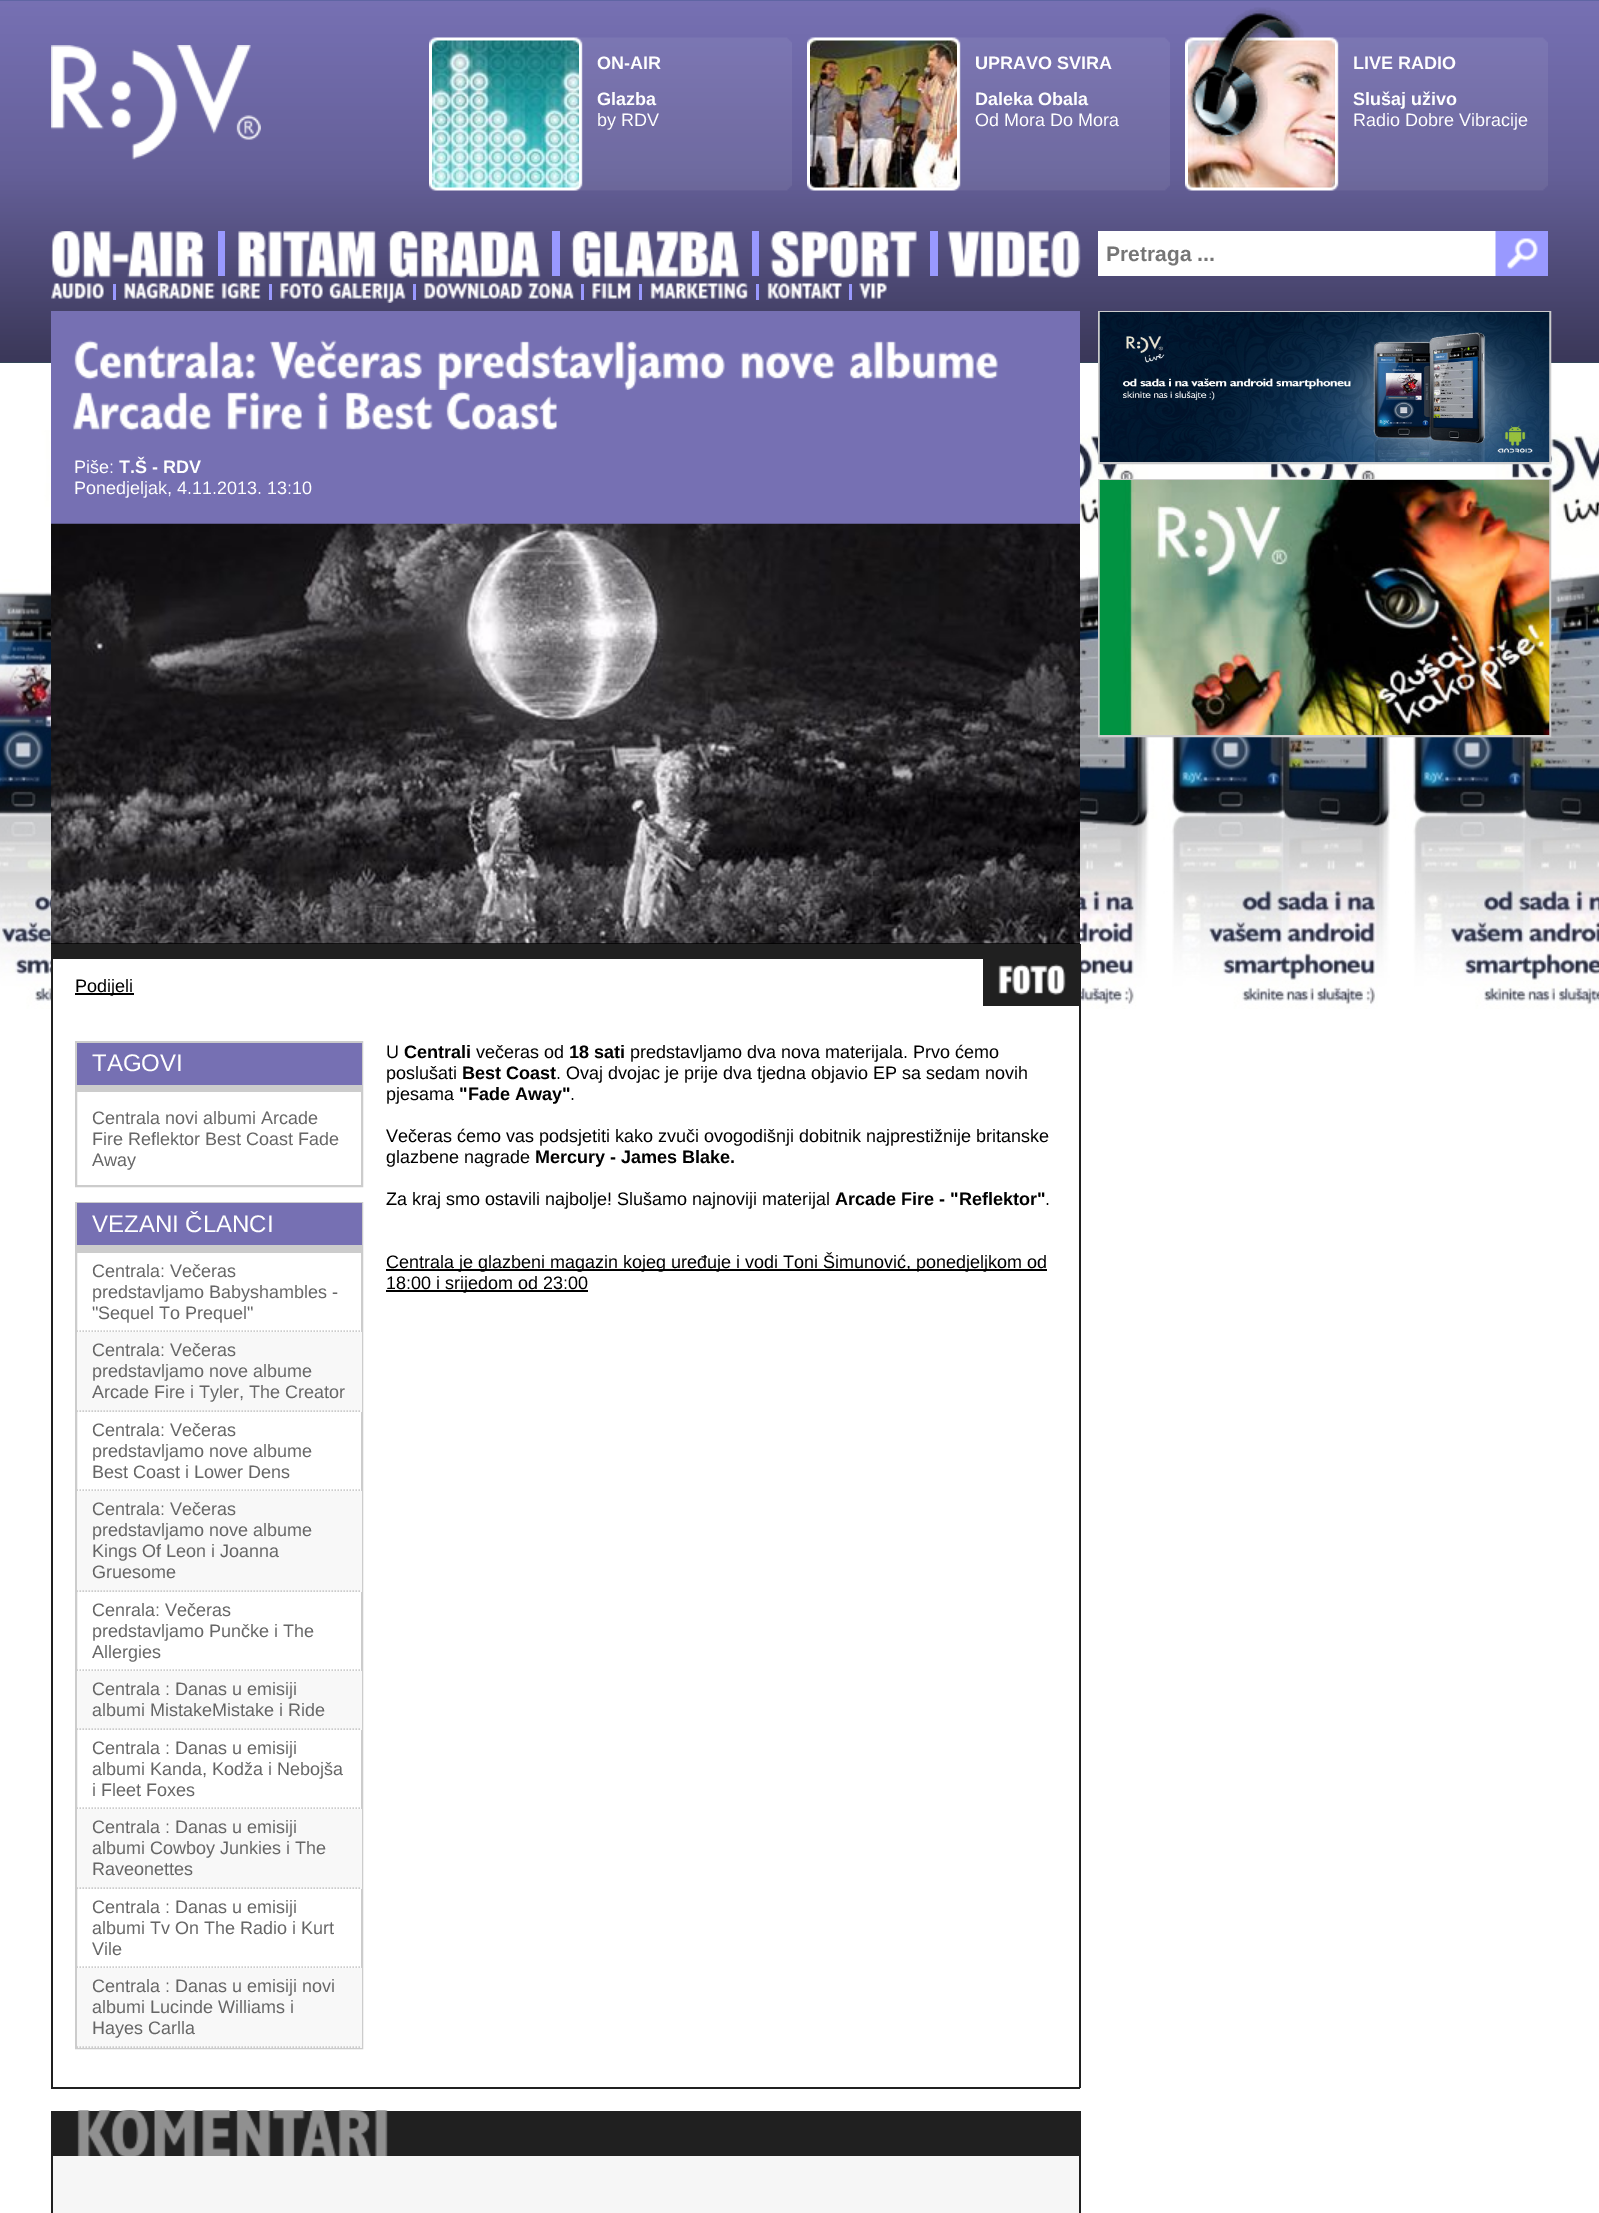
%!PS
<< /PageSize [1599 2213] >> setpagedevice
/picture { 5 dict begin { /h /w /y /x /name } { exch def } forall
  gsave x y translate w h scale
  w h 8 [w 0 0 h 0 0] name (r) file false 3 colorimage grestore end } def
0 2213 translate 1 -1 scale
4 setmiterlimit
1 setgray
0 0 1599 2213 rectfill
(img1.rgb) 0 0 1599 363 picture
(img2.rgb) 51 45 210 115 picture
(img3.rgb) 429 37 363 154 picture
(img4.rgb) 432 40 147 148 picture
/LiberationSans-Bold [18 0 0 -18 0 0] selectfont
597 69 moveto (ON-AIR) show
597 105 moveto (Glazba) show
/LiberationSans-Regular [18 0 0 -18 0 0] selectfont
597 126 moveto (by RDV) show
(img5.rgb) 807 37 363 154 picture
(img6.rgb) 810 40 147 148 picture
/LiberationSans-Bold [18 0 0 -18 0 0] selectfont
975 69 moveto (UPRAVO SVIRA) show
975 105 moveto (Daleka Obala) show
/LiberationSans-Regular [18 0 0 -18 0 0] selectfont
975 126 moveto (Od Mora Do Mora) show
(img3.rgb) 1185 37 363 154 picture
(img8.rgb) 1188 40 147 148 picture
(img7.rgb) 1186 7 118 139 picture
/LiberationSans-Bold [18 0 0 -18 0 0] selectfont
1353 69 moveto (LIVE RADIO) show
1353 105 moveto (Slušaj uživo) show
/LiberationSans-Regular [18 0 0 -18 0 0] selectfont
1353 126 moveto (Radio Dobre Vibracije) show
(img9.rgb) 51 231 153 47 picture
0.6 0.6 1 setrgbcolor
218 231 7 45 rectfill
(img10.rgb) 238 231 138 47 picture
(img11.rgb) 388 231 153 47 picture
552 231 8 45 rectfill
(img12.rgb) 571 231 169 47 picture
752 231 7 45 rectfill
(img13.rgb) 770 231 147 47 picture
930 231 8 45 rectfill
(img14.rgb) 947 231 134 47 picture
1 setgray
1098 231 398 45 rectfill
/LiberationSans-Bold [21 0 0 -21 0 0] selectfont
0.459 setgray
1106 261 moveto (Pretraga ...) show
(img15.rgb) 1495 231 53 45 picture
(img16.rgb) 51 283 53 16 picture
0.6 0.6 1 setrgbcolor
113 284 3 16 rectfill
(img17.rgb) 124 283 91 16 picture
(img18.rgb) 221 283 40 16 picture
269 284 3 16 rectfill
(img19.rgb) 280 283 43 16 picture
(img20.rgb) 328 283 78 20 picture
413 284 3 16 rectfill
(img21.rgb) 424 283 99 16 picture
(img22.rgb) 528 283 47 16 picture
581 284 3 16 rectfill
(img23.rgb) 592 283 39 16 picture
639 284 3 16 rectfill
(img24.rgb) 650 283 98 16 picture
756 284 3 16 rectfill
(img25.rgb) 767 283 75 16 picture
849 284 3 16 rectfill
(img26.rgb) 859 283 28 16 picture
(img27.rgb) 0 430 1599 579 picture
1 setgray
53 959 1026 50 rectfill
0.463 0.439 0.702 setrgbcolor
51 311 1029 213 rectfill
(img28.rgb) 74 340 182 40 picture
(img29.rgb) 270 340 152 40 picture
(img30.rgb) 438 340 287 50 picture
(img31.rgb) 741 352 94 27 picture
(img32.rgb) 849 341 149 39 picture
(img33.rgb) 73 392 138 39 picture
(img34.rgb) 227 391 75 39 picture
(img35.rgb) 317 391 11 39 picture
(img36.rgb) 346 392 87 38 picture
(img37.rgb) 446 391 111 40 picture
/LiberationSans-Regular [18 0 0 -18 0 0] selectfont
1 setgray
74 473 moveto (Piše:) show
/LiberationSans-Bold [18 0 0 -18 0 0] selectfont
119 473 moveto (T.Š - RDV) show
/LiberationSans-Regular [18 0 0 -18 0 0] selectfont
74 494 moveto (Ponedjeljak, 4.11.2013. 13:10) show
0 setgray
51 943 1029 1 rectfill
(img38.rgb) 51 523 1029 421 picture
0.125 setgray
53 944 1026 15 rectfill
1079 944 2 1144 rectfill
51 944 2 75 rectfill
0 setgray
75 993 59 2 rectfill
75 992 moveto (Podijeli) show
0.125 setgray
983 959 96 47 rectfill
(img39.rgb) 998 964 68 31 picture
51 2087 1029 2 rectfill
51 1019 2 1069 rectfill
0.8 setgray
2 setlinewidth
76 1042 286 144 rectstroke
0.463 0.439 0.702 setrgbcolor
77 1043 285 42 rectfill
0.8 setgray
77 1085 285 7 rectfill
/LiberationSans-Regular [24 0 0 -24 0 0] selectfont
1 setgray
92 1071 moveto (TAGOVI) show
/LiberationSans-Regular [18 0 0 -18 0 0] selectfont
0.4 setgray
92 1124 moveto (Centrala novi albumi Arcade) show
92 1145 moveto (Fire Reflektor Best Coast Fade) show
92 1166 moveto (Away) show
0.8 setgray
76 1203 286 845 rectstroke
0.463 0.439 0.702 setrgbcolor
77 1203 285 42 rectfill
0.8 setgray
77 1245 285 8 rectfill
/LiberationSans-Regular [24 0 0 -24 0 0] selectfont
1 setgray
92 1232 moveto (VEZANI ČLANCI) show
0.8 setgray
1.5 setlinewidth
[1.5 1.5] 0 setdash
newpath 76.5 1331 moveto 361.5 1331 lineto stroke
/LiberationSans-Regular [18 0 0 -18 0 0] selectfont
0.4 setgray
92 1277 moveto (Centrala: Večeras) show
92 1298 moveto (predstavljamo Babyshambles -) show
92 1319 moveto ("Sequel To Prequel") show
0.973 setgray
77 1332 285 80 rectfill
0.8 setgray
newpath 76.5 1411 moveto 361.5 1411 lineto stroke
0.4 setgray
92 1356 moveto (Centrala: Večeras) show
92 1377 moveto (predstavljamo nove albume) show
92 1398 moveto (Arcade Fire i Tyler, The Creator) show
0.8 setgray
newpath 76.5 1490 moveto 361.5 1490 lineto stroke
0.4 setgray
92 1436 moveto (Centrala: Večeras) show
92 1457 moveto (predstavljamo nove albume) show
92 1478 moveto (Best Coast i Lower Dens) show
0.973 setgray
77 1491 285 101 rectfill
0.8 setgray
newpath 76.5 1591 moveto 361.5 1591 lineto stroke
0.4 setgray
92 1515 moveto (Centrala: Večeras) show
92 1536 moveto (predstavljamo nove albume) show
92 1557 moveto (Kings Of Leon i Joanna) show
92 1578 moveto (Gruesome) show
0.8 setgray
newpath 76.5 1670 moveto 361.5 1670 lineto stroke
0.4 setgray
92 1616 moveto (Cenrala: Večeras) show
92 1637 moveto (predstavljamo Punčke i The) show
92 1658 moveto (Allergies) show
0.973 setgray
77 1671 285 59 rectfill
0.8 setgray
newpath 76.5 1729 moveto 361.5 1729 lineto stroke
0.4 setgray
92 1695 moveto (Centrala : Danas u emisiji) show
92 1716 moveto (albumi MistakeMistake i Ride) show
0.8 setgray
newpath 76.5 1808 moveto 361.5 1808 lineto stroke
0.4 setgray
92 1754 moveto (Centrala : Danas u emisiji) show
92 1775 moveto (albumi Kanda, Kodža i Nebojša) show
92 1796 moveto (i Fleet Foxes) show
0.973 setgray
77 1809 285 80 rectfill
0.8 setgray
newpath 76.5 1888 moveto 361.5 1888 lineto stroke
0.4 setgray
92 1833 moveto (Centrala : Danas u emisiji) show
92 1854 moveto (albumi Cowboy Junkies i The) show
92 1875 moveto (Raveonettes) show
0.8 setgray
newpath 76.5 1967 moveto 361.5 1967 lineto stroke
0.4 setgray
92 1913 moveto (Centrala : Danas u emisiji) show
92 1934 moveto (albumi Tv On The Radio i Kurt) show
92 1955 moveto (Vile) show
0.973 setgray
77 1968 285 80 rectfill
0.8 setgray
newpath 76.5 2047 moveto 361.5 2047 lineto stroke
0.4 setgray
92 1992 moveto (Centrala : Danas u emisiji novi) show
92 2013 moveto (albumi Lucinde Williams i) show
92 2034 moveto (Hayes Carlla) show
0 setgray
386 1058 moveto (U) show
/LiberationSans-Bold [18 0 0 -18 0 0] selectfont
404 1058 moveto (Centrali) show
/LiberationSans-Regular [18 0 0 -18 0 0] selectfont
476 1058 moveto (večeras od) show
/LiberationSans-Bold [18 0 0 -18 0 0] selectfont
569 1058 moveto (18 sati) show
/LiberationSans-Regular [18 0 0 -18 0 0] selectfont
630 1058 moveto (predstavljamo dva nova materijala. Prvo ćemo) show
386 1079 moveto (poslušati) show
/LiberationSans-Bold [18 0 0 -18 0 0] selectfont
462 1079 moveto (Best Coast) show
/LiberationSans-Regular [18 0 0 -18 0 0] selectfont
556 1079 moveto (. Ovaj dvojac je prije dva tjedna objavio EP sa sedam novih) show
386 1100 moveto (pjesama) show
/LiberationSans-Bold [18 0 0 -18 0 0] selectfont
459 1100 moveto ("Fade Away") show
/LiberationSans-Regular [18 0 0 -18 0 0] selectfont
570 1100 moveto (.) show
386 1142 moveto (Večeras ćemo vas podsjetiti kako zvuči ovogodišnji dobitnik najprestižnije britanske) show
386 1163 moveto (glazbene nagrade) show
/LiberationSans-Bold [18 0 0 -18 0 0] selectfont
535 1163 moveto (Mercury - James Blake.) show
/LiberationSans-Regular [18 0 0 -18 0 0] selectfont
386 1205 moveto (Za kraj smo ostavili najbolje! Slušamo najnoviji materijal) show
/LiberationSans-Bold [18 0 0 -18 0 0] selectfont
835 1205 moveto (Arcade Fire - "Reflektor") show
/LiberationSans-Regular [18 0 0 -18 0 0] selectfont
1045 1205 moveto (.) show
386 1269 661 2 rectfill
386 1268 moveto (Centrala je glazbeni magazin kojeg uređuje i vodi Toni Šimunović, ponedjeljkom od) show
386 1290 202 2 rectfill
386 1289 moveto (18:00 i srijedom od 23:00) show
0.965 setgray
53 2156 1026 57 rectfill
0.125 setgray
1079 2111 2 102 rectfill
51 2111 2 102 rectfill
53 2111 1026 45 rectfill
(img40.rgb) 77 2110 311 46 picture
0.8 setgray
2 setlinewidth
[] 0 setdash
1099 312 451 151 rectstroke
(img41.rgb) 1099 312 451 150 picture
1099 480 451 256 rectstroke
(img42.rgb) 1099 480 451 255 picture
showpage
